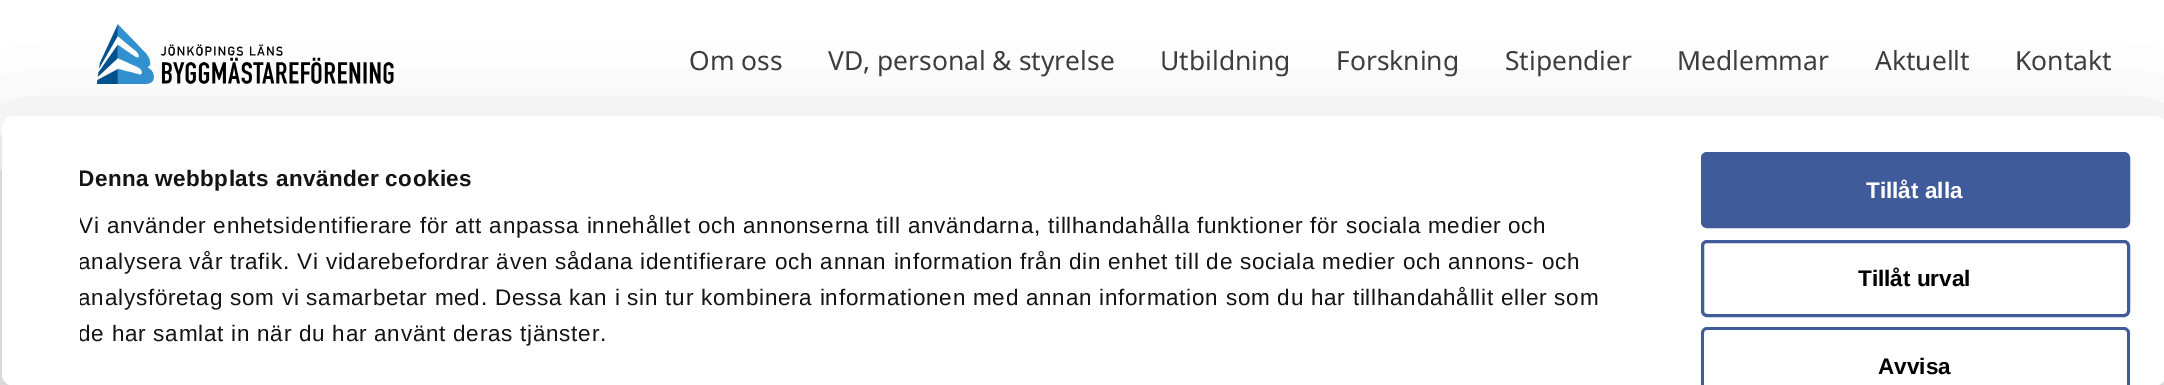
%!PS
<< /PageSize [2164 385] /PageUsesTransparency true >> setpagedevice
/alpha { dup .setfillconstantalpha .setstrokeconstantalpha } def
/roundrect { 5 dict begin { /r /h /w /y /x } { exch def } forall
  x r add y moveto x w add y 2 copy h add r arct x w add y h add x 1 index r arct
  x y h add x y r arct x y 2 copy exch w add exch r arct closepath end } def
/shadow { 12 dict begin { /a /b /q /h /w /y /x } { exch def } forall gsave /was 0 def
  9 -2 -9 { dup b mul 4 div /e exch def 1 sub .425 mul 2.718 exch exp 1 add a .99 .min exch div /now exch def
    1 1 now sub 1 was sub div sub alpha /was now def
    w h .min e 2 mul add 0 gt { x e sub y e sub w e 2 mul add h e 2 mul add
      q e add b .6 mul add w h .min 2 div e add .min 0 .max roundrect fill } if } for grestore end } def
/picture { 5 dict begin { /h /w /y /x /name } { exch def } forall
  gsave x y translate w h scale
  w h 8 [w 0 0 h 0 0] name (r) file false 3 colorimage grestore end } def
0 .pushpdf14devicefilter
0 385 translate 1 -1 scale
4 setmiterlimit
1 setgray
0 0 2164 385 rectfill
(img1.rgb) 97 24 297 60 picture
/NotoSans-Regular [26.4 0 0 -26.4 0 0] selectfont
0.239 setgray
689 70 moveto (Om oss) show
828 70 moveto (VD, personal & styrelse) show
1160 70 moveto (Utbildning) show
1336 70 moveto (Forskning) show
1505 70 moveto (Stipendier) show
1677 70 moveto (Medlemmar) show
1875 70 moveto (Aktuellt) show
2015 70 moveto (Kontakt) show
gsave
newpath 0 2 moveto 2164 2 lineto 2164 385 lineto 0 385 lineto closepath 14 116 moveto 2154 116 lineto 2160.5 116 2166 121.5 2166 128 curveto 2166 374 lineto 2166 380.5 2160.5 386 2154 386 curveto 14 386 lineto 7.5 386 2 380.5 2 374 curveto 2 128 lineto 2 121.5 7.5 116 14 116 curveto closepath eoclip newpath
0 setgray
2 161 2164 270 12 52.5 0.3 shadow
grestore
1 setgray
2 116 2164 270 12 roundrect fill
gsave
80 161 1578 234 rectclip
/LiberationSans-Bold [22.5 0 0 -22.5 0 0] selectfont
0.078 setgray
78 186 moveto 0.4 0 (Denna webbplats använder cookies) ashow
/LiberationSans-Regular [22.5 0 0 -22.5 0 0] selectfont
78 233 moveto 0.75 0 (Vi använder enhetsidentifierare för att anpassa innehållet och annonserna till användarna, tillhandahålla funktioner för sociala medier och) ashow
78 269 moveto 0.75 0 (analysera vår trafik. Vi vidarebefordrar även sådana identifierare och annan information från din enhet till de sociala medier och annons- och) ashow
78 305 moveto 0.75 0 (analysföretag som vi samarbetar med. Dessa kan i sin tur kombinera informationen med annan information som du har tillhandahållit eller som) ashow
78 341 moveto 0.75 0 (de har samlat in när du har använt deras tjänster.) ashow
grestore
0.251 0.357 0.6 setrgbcolor
1702.5 153.5 426 73 4.5 roundrect gsave fill grestore
3 setlinewidth
stroke
/LiberationSans-Bold [22.5 0 0 -22.5 0 0] selectfont
1 setgray
1866 198 moveto (Tillåt alla) show
0.251 0.357 0.6 setrgbcolor
1702.5 241.5 426 74 4.5 roundrect stroke
0 setgray
1858 286 moveto (Tillåt urval) show
0.251 0.357 0.6 setrgbcolor
newpath 1707 327 moveto 1704 327 1701 330 1701 333 curveto 1701 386 lineto 1704 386 lineto 1704 333 lineto 1704 331 1705 330 1707 330 curveto 2124 330 lineto 2126 330 2127 331 2127 333 curveto 2127 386 lineto 2130 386 lineto 2130 333 lineto 2130 330 2127 327 2124 327 curveto closepath fill
0 setgray
1878 374 moveto (Avvisa) show
.poppdf14devicefilter showpage
